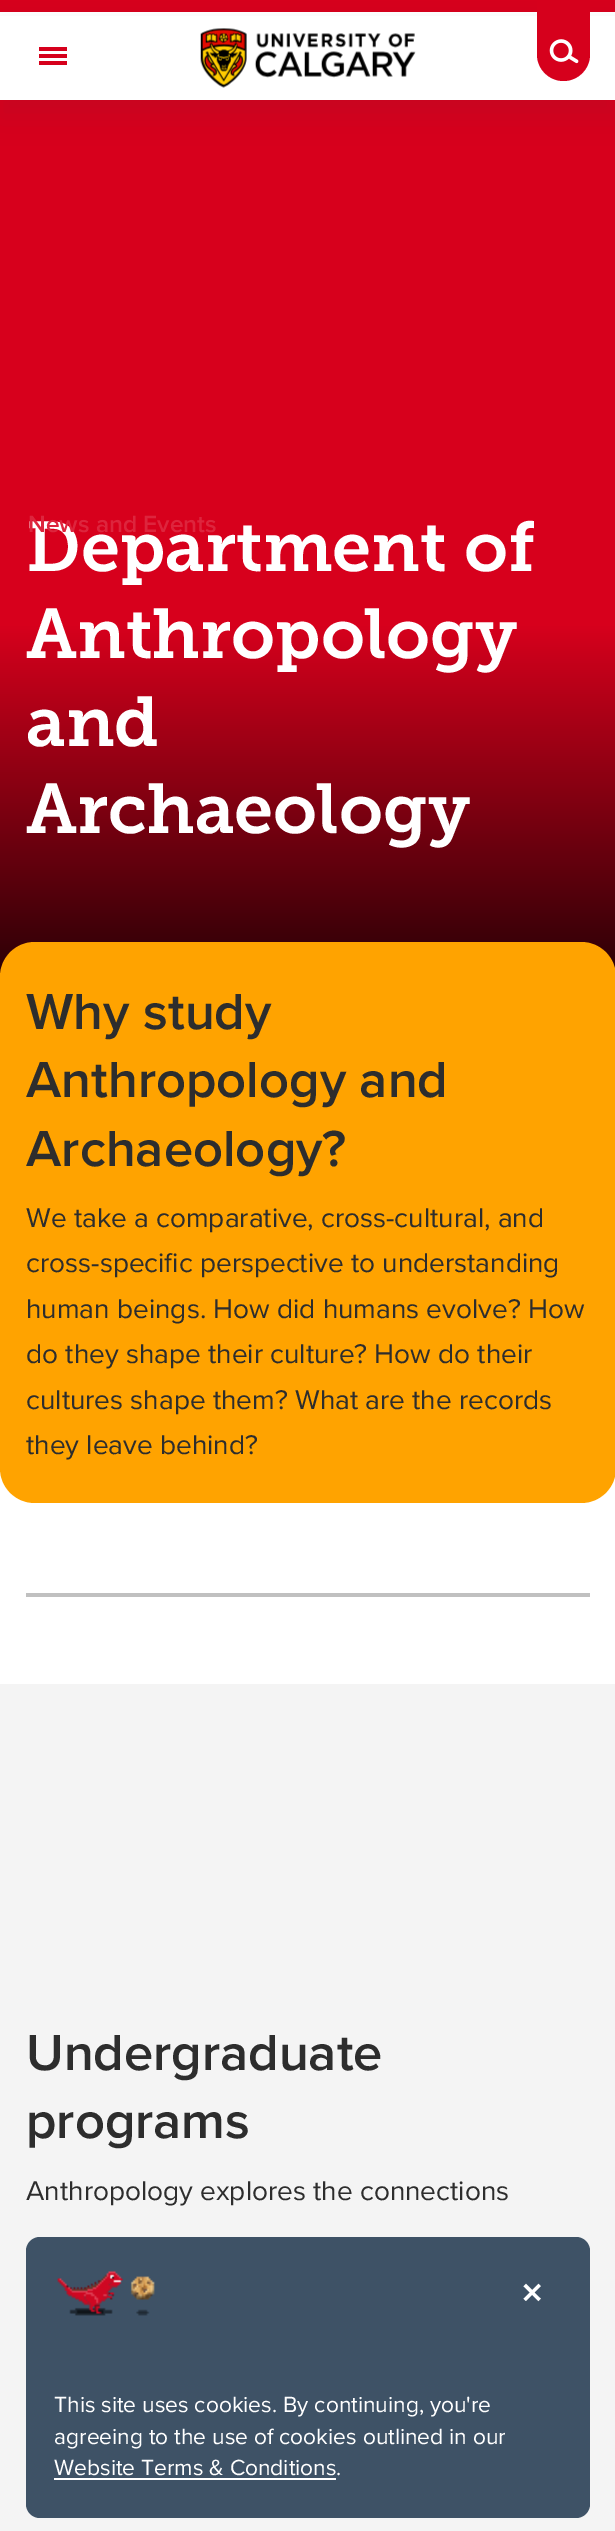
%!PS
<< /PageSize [615 2531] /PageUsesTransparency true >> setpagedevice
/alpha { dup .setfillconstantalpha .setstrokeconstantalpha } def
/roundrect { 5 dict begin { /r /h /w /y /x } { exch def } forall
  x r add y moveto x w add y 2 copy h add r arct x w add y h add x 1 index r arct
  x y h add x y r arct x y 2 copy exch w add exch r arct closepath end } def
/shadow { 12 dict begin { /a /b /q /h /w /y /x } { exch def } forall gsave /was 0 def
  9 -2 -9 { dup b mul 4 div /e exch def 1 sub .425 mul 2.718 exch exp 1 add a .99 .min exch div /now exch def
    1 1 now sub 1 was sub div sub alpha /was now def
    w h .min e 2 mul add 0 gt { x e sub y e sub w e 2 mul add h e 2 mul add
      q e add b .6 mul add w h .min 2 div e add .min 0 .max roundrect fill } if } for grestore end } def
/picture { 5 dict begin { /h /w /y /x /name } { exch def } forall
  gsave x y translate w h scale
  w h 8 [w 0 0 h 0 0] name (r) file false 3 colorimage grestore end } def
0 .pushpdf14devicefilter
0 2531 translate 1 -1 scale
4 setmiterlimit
1 setgray
0 0 615 2531 rectfill
0.839 0 0.11 setrgbcolor
0 0 615 12 rectfill
gsave newpath 0 100 moveto 615 100 lineto 615 975 lineto 0 975 lineto closepath clip newpath
<< /ShadingType 2 /ColorSpace /DeviceRGB /Coords [308 100 308 975] /Extend [true true] /Function << /FunctionType 3 /Domain [0 1] /Functions [<< /FunctionType 2 /Domain [0 1] /C0 [0.843 0 0.11] /C1 [0.843 0 0.11] /N 1 >> << /FunctionType 2 /Domain [0 1] /C0 [0.843 0 0.11] /C1 [0.169 0 0.024] /N 1 >>] /Bounds [0.6] /Encode [0 1 0 1] >> >> shfill grestore
0.239 setgray
0 30 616 87 0 13 0.1 shadow
1 setgray
0 16 615 84 rectfill
0.839 0 0.11 setrgbcolor
newpath 537 0 moveto 590 0 lineto 590 54.5 lineto 590 69 578 81 563.5 81 curveto 549 81 537 69 537 54.5 curveto closepath fill
(img1.rgb) 549 39 30 25 picture
(img2.rgb) 200 28 216 60 picture
39 54 28 4 rectfill
39 47 28 4 rectfill
39 61 28 4 rectfill
/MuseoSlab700-SemiBold [70 0 0 -70 0 0] selectfont
1 setgray
26 571 moveto (Department of) show
/ProximaNova-SemiBold [24.5 0 0 -24.5 0 0] selectfont
0.867 0.145 0.239 setrgbcolor
28 532 moveto (News and Events) show
/MuseoSlab700-SemiBold [70 0 0 -70 0 0] selectfont
1 setgray
26 658 moveto (Anthropology) show
26 746 moveto (and) show
26 833 moveto (Archaeology) show
1 0.639 0 setrgbcolor
0 975 615 495 rectfill
newpath 35 942 moveto 581 942 lineto 600.5 942 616 957.5 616 977 curveto 0 977 lineto 0 957.5 15.5 942 35 942 curveto closepath fill
/ProximaNova-SemiBold [52.5 0 0 -52.5 0 0] selectfont
0.176 setgray
26 1029 moveto (Why study) show
26 1097 moveto (Anthropology and) show
26 1166 moveto (Archaeology?) show
/ProximaNova-Regular [28 0 0 -28 0 0] selectfont
26 1227 moveto (We take a comparative, cross-cultural, and) show
26 1272 moveto (cross-specific perspective to understanding) show
26 1318 moveto (human beings. How did humans evolve? How) show
26 1363 moveto (do they shape their culture? How do their) show
26 1409 moveto (cultures shape them? What are the records) show
26 1454 moveto (they leave behind?) show
1 0.639 0 setrgbcolor
newpath 0 1468 moveto 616 1468 lineto 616 1487.5 600.5 1503 581 1503 curveto 35 1503 lineto 15.5 1503 0 1487.5 0 1468 curveto closepath fill
0.753 setgray
26 1593 564 4 rectfill
0.957 setgray
0 1684 615 847 rectfill
/ProximaNova-SemiBold [52.5 0 0 -52.5 0 0] selectfont
0.176 setgray
26 2070 moveto (Undergraduate) show
26 2138 moveto (programs) show
/ProximaNova-Regular [28 0 0 -28 0 0] selectfont
26 2200 moveto (Anthropology explores the connections) show
0.243 0.322 0.4 setrgbcolor
26 2237 564 281 14 roundrect fill
(img3.rgb) 57 2271 98 45 picture
/DejaVuSans-Bold [28 0 0 -28 0 0] selectfont
1 setgray
520 2303 moveto (✕) show
/ProximaNova-Regular [22.75 0 0 -22.75 0 0] selectfont
54 2412 moveto (This site uses cookies. By continuing, you're) show
54 2444 moveto (agreeing to the use of cookies outlined in our) show
54 2475 moveto (Website Terms & Conditions.) show
54 2478 282 2 rectfill
.poppdf14devicefilter showpage
